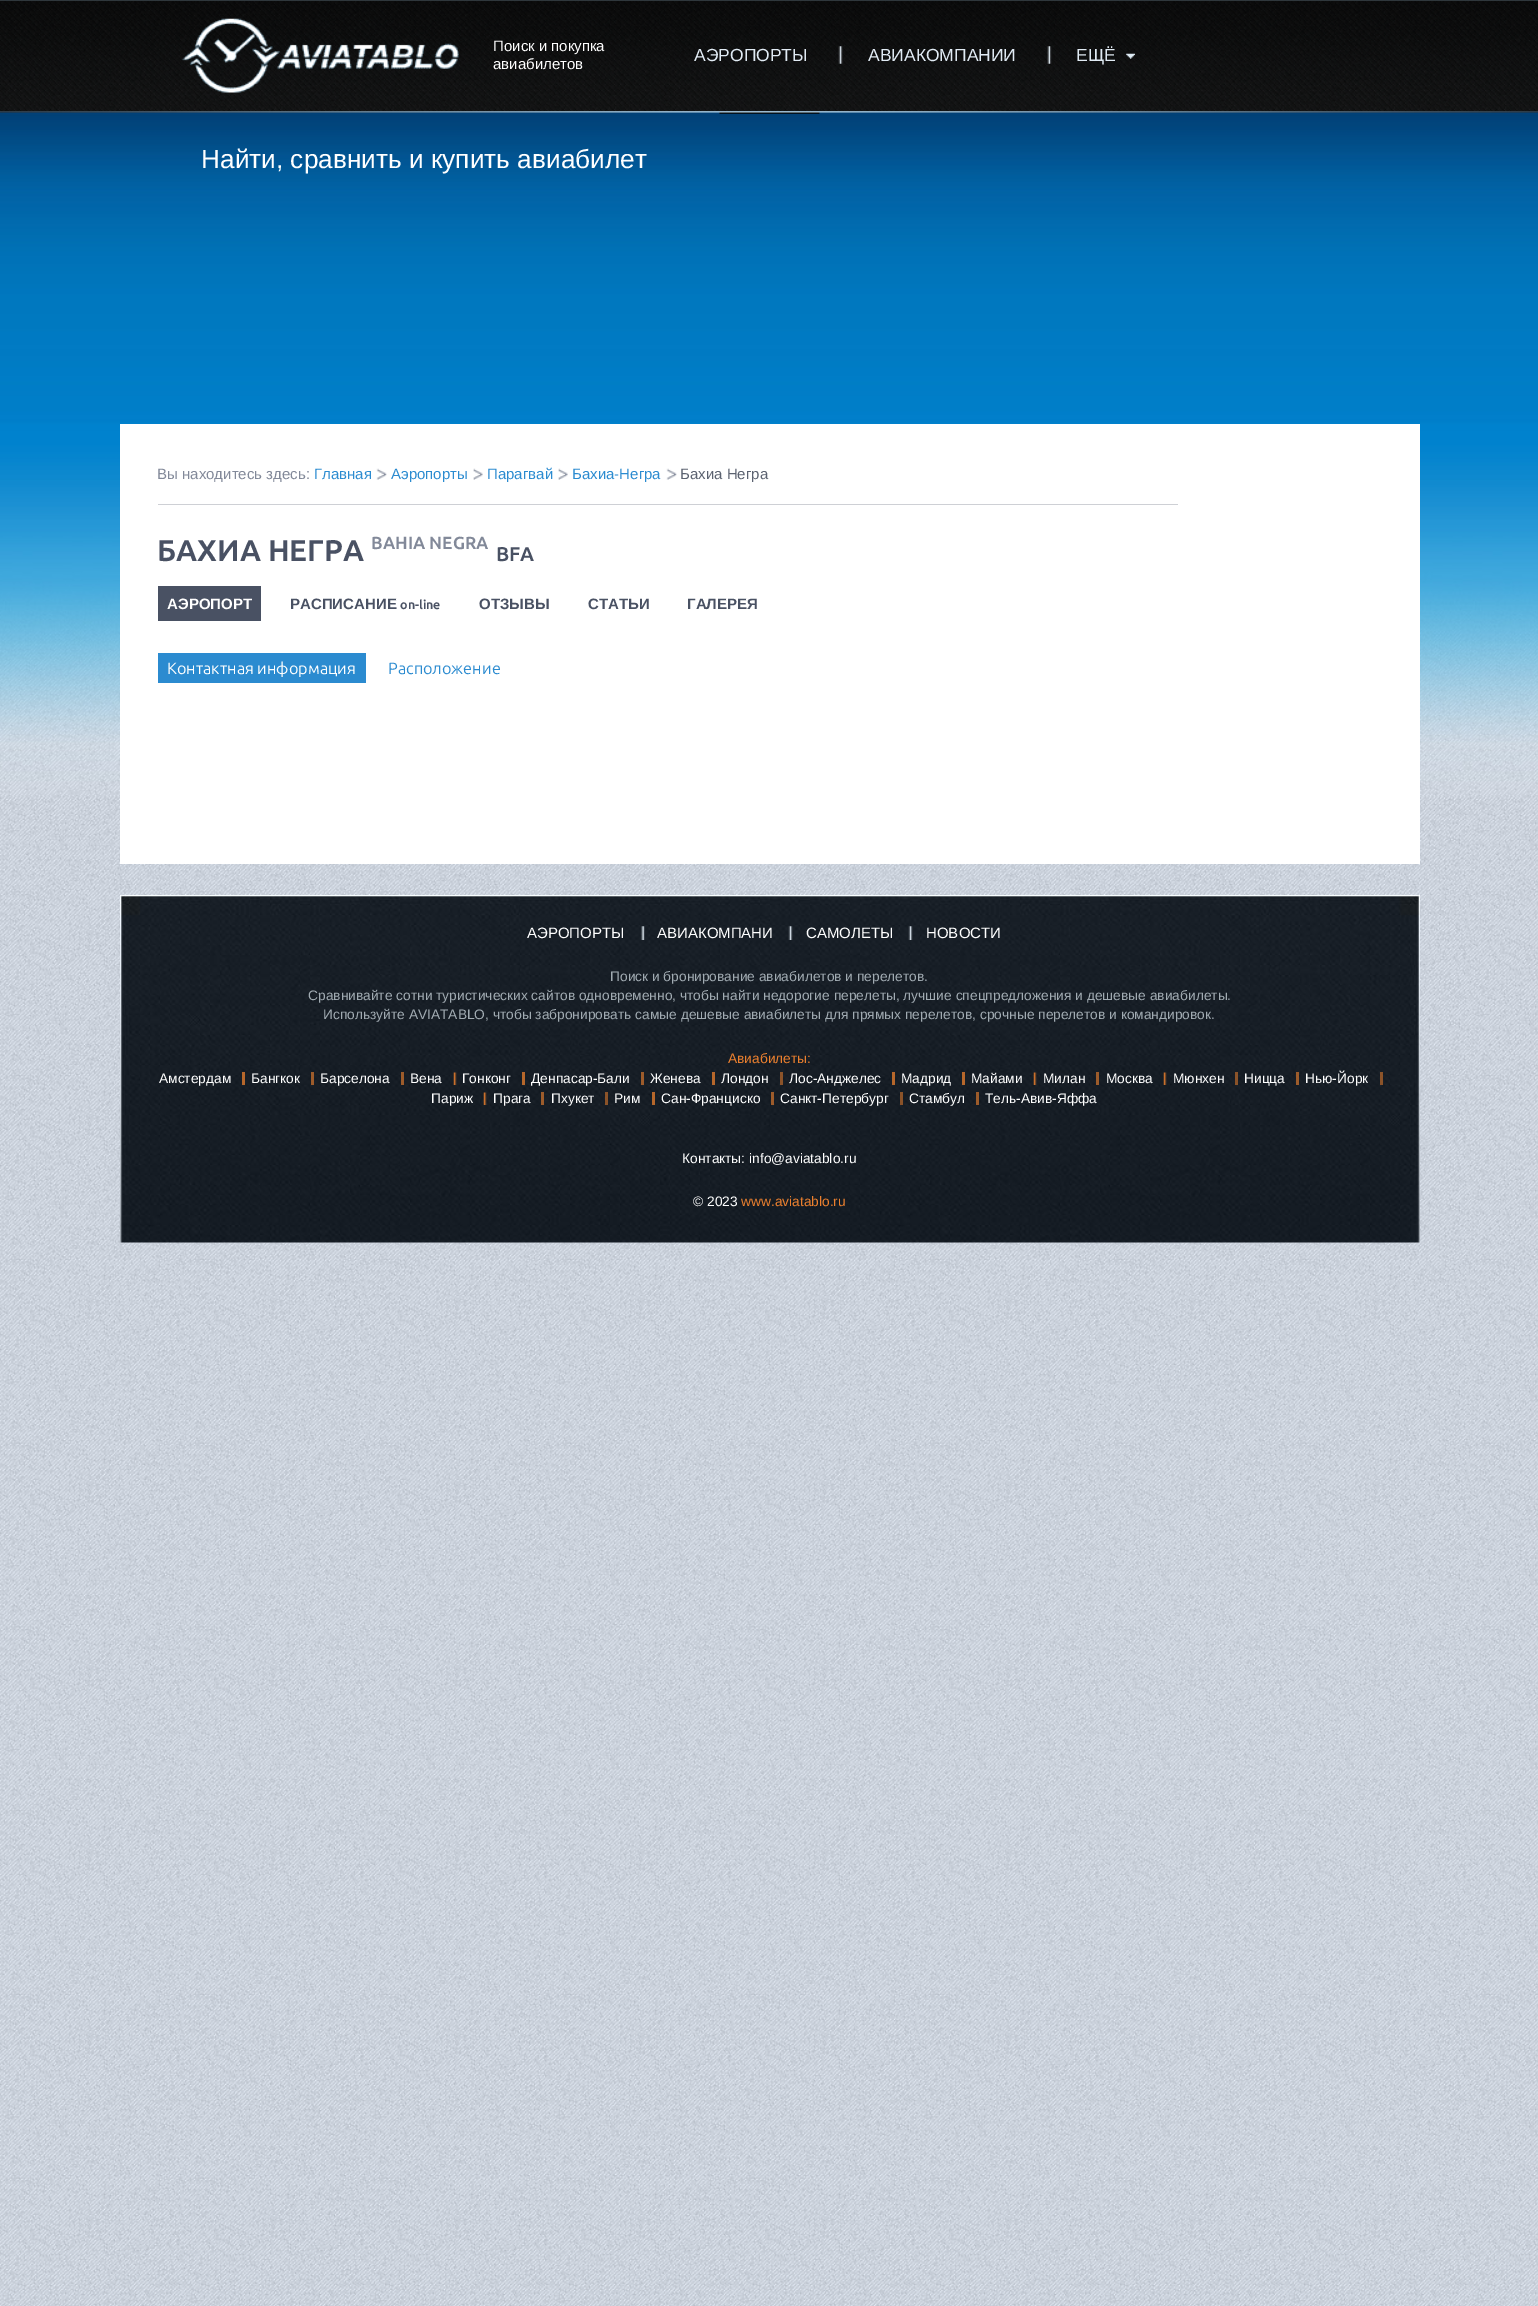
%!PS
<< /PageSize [1538 2306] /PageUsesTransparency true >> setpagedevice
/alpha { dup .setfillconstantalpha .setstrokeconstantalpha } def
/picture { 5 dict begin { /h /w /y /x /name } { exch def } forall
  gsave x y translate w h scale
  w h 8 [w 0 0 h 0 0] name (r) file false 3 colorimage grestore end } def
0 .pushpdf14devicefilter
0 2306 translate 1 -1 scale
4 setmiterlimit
1 setgray
0 0 1538 2306 rectfill
(img1.rgb) 0 1 1538 2305 picture
0.184 0.216 0.235 setrgbcolor
0 0 1538 1 rectfill
(img2.rgb) 0 1 1538 111 picture
(img3.rgb) 182 18 277 75 picture
/LiberationSans-Regular [15 0 0 -15 0 0] selectfont
1 setgray
493 51 moveto (Поиск и покупка) show
493 69 moveto (авиабилетов) show
(img4.rgb) 838 46 5 18 picture
/LiberationSans-Regular [17.5 0 0 -17.5 0 0] selectfont
0.882 0.922 0.957 setrgbcolor
694 61 moveto (АЭРОПОРТЫ) show
(img5.rgb) 1047 46 5 18 picture
868 61 moveto (АВИАКОМПАНИИ) show
(img6.rgb) 1126 53 9 6 picture
1076 61 moveto (ЕЩЁ) show
(img7.rgb) 0 111 1538 686 picture
(img8.rgb) 0 111 1538 3 picture
/LiberationSans-Regular [26.25 0 0 -26.25 0 0] selectfont
1 setgray
201 168 moveto (Найти, сравнить и купить авиабилет) show
120 424 1300 440 rectfill
/LiberationSans-Regular [15 0 0 -15 0 0] selectfont
0.51 0.537 0.6 setrgbcolor
157 479 moveto (Вы находитесь здесь:) show
(img9.rgb) 376 468 11 12 picture
0.169 0.545 0.816 setrgbcolor
314 479 moveto (Главная) show
(img10.rgb) 473 468 10 12 picture
391 479 moveto (Аэропорты) show
(img11.rgb) 558 468 10 12 picture
487 479 moveto (Парагвай) show
(img9.rgb) 666 468 11 12 picture
572 479 moveto (Бахиа-Негра) show
0.357 0.384 0.439 setrgbcolor
680 479 moveto (Бахиа Негра) show
0.808 0.816 0.835 setrgbcolor
158 504 1020 1 rectfill
/Ubuntu-Bold [30 0 0 -30 0 0] selectfont
0.286 0.318 0.388 setrgbcolor
157 561 moveto (БАХИА НЕГРА) show
/Ubuntu-Bold [17.5 0 0 -17.5 0 0] selectfont
0.51 0.537 0.6 setrgbcolor
371 549 moveto (BAHIA NEGRA) show
/Ubuntu-Bold [20 0 0 -20 0 0] selectfont
0.286 0.318 0.388 setrgbcolor
496 561 moveto (BFA) show
158 586 103 35 rectfill
/LiberationSans-Bold [15 0 0 -15 0 0] selectfont
1 setgray
167 609 moveto (АЭРОПОРТ) show
0.286 0.318 0.388 setrgbcolor
290 609 moveto (РАСПИСАНИЕ) show
/Ubuntu-Bold [12.5 0 0 -12.5 0 0] selectfont
400 609 moveto (on-line) show
/LiberationSans-Bold [15 0 0 -15 0 0] selectfont
479 609 moveto (ОТЗЫВЫ) show
588 609 moveto (СТАТЬИ) show
687 609 moveto (ГАЛЕРЕЯ) show
0.169 0.545 0.816 setrgbcolor
158 653 208 30 rectfill
/Ubuntu-Regular [16.25 0 0 -16.25 0 0] selectfont
1 setgray
167 674 moveto (Контактная информация) show
0.169 0.545 0.816 setrgbcolor
388 674 moveto (Расположение) show
(img12.rgb) 120 895 1300 348 picture
(img13.rgb) 641 926 4 14 picture
/LiberationSans-Regular [15 0 0 -15 0 0] selectfont
1 setgray
527 938 moveto (АЭРОПОРТЫ) show
(img14.rgb) 788 926 5 14 picture
657 938 moveto (АВИАКОМПАНИ) show
(img15.rgb) 908 926 5 14 picture
806 938 moveto (САМОЛЕТЫ) show
926 938 moveto (НОВОСТИ) show
/LiberationSans-Regular [13.75 0 0 -13.75 0 0] selectfont
0.631 0.671 0.698 setrgbcolor
610 981 moveto (Поиск и бронирование авиабилетов и перелетов.) show
308 1000 moveto (Сравнивайте сотни туристических сайтов одновременно, чтобы найти недорогие перелеты, лучшие спецпредложения и дешевые авиабилеты.) show
323 1019 moveto (Используйте AVIATABLO, чтобы забронировать самые дешевые авиабилеты для прямых перелетов, срочные перелетов и командировок.) show
0.925 0.502 0.18 setrgbcolor
728 1063 moveto (Авиабилеты:) show
0.75 alpha
0.925 0.502 0.176 setrgbcolor
242 1072 3 13 rectfill
1 alpha
1 setgray
159 1083 moveto (Амстердам) show
0.63 alpha
0.925 0.502 0.18 setrgbcolor
311 1072 3 13 rectfill
1 alpha
1 setgray
251 1083 moveto (Бангкок) show
0.63 alpha
0.925 0.502 0.18 setrgbcolor
401 1072 3 13 rectfill
1 alpha
1 setgray
320 1083 moveto (Барселона) show
(img16.rgb) 453 1072 4 13 picture
410 1083 moveto (Вена) show
0.75 alpha
0.925 0.502 0.176 setrgbcolor
522 1072 3 13 rectfill
1 alpha
1 setgray
462 1083 moveto (Гонконг) show
0.63 alpha
0.925 0.502 0.18 setrgbcolor
641 1072 3 13 rectfill
1 alpha
1 setgray
531 1083 moveto (Денпасар-Бали) show
0.75 alpha
0.925 0.502 0.176 setrgbcolor
712 1072 3 13 rectfill
1 alpha
1 setgray
650 1083 moveto (Женева) show
0.55 alpha
0.922 0.498 0.173 setrgbcolor
780 1072 3 13 rectfill
1 alpha
1 setgray
721 1083 moveto (Лондон) show
0.75 alpha
0.925 0.502 0.176 setrgbcolor
892 1072 3 13 rectfill
1 alpha
1 setgray
789 1083 moveto (Лос-Анджелес) show
0.75 alpha
0.925 0.502 0.176 setrgbcolor
962 1072 3 13 rectfill
1 alpha
1 setgray
901 1083 moveto (Мадрид) show
(img17.rgb) 1033 1072 4 13 picture
971 1083 moveto (Майами) show
0.63 alpha
0.925 0.502 0.18 setrgbcolor
1096 1072 3 13 rectfill
1 alpha
1 setgray
1043 1083 moveto (Милан) show
(img18.rgb) 1163 1072 4 13 picture
1106 1083 moveto (Москва) show
0.55 alpha
0.922 0.498 0.173 setrgbcolor
1235 1072 3 13 rectfill
1 alpha
1 setgray
1173 1083 moveto (Мюнхен) show
0.63 alpha
0.925 0.502 0.18 setrgbcolor
1296 1072 3 13 rectfill
1 alpha
1 setgray
1244 1083 moveto (Ницца) show
0.55 alpha
0.922 0.498 0.173 setrgbcolor
1380 1072 3 13 rectfill
1 alpha
1 setgray
1305 1083 moveto (Нью-Йорк) show
(img19.rgb) 483 1092 4 13 picture
431 1103 moveto (Париж) show
0.63 alpha
0.925 0.502 0.18 setrgbcolor
541 1092 3 13 rectfill
1 alpha
1 setgray
493 1103 moveto (Прага) show
0.55 alpha
0.922 0.498 0.173 setrgbcolor
605 1092 3 13 rectfill
1 alpha
1 setgray
551 1103 moveto (Пхукет) show
0.75 alpha
0.925 0.502 0.176 setrgbcolor
652 1092 3 13 rectfill
1 alpha
1 setgray
614 1103 moveto (Рим) show
0.63 alpha
0.925 0.502 0.18 setrgbcolor
771 1092 3 13 rectfill
1 alpha
1 setgray
661 1103 moveto (Сан-Франциско) show
0.55 alpha
0.922 0.498 0.173 setrgbcolor
900 1092 3 13 rectfill
1 alpha
1 setgray
780 1103 moveto (Санкт-Петербург) show
0.63 alpha
0.925 0.502 0.18 setrgbcolor
976 1092 3 13 rectfill
1 alpha
1 setgray
909 1103 moveto (Стамбул) show
985 1103 moveto (Тель-Авив-Яффа) show
682 1163 moveto (Контакты: info@aviatablo.ru) show
693 1206 moveto (© 2023) show
0.925 0.502 0.18 setrgbcolor
741 1206 moveto (www.aviatablo.ru) show
.poppdf14devicefilter showpage
